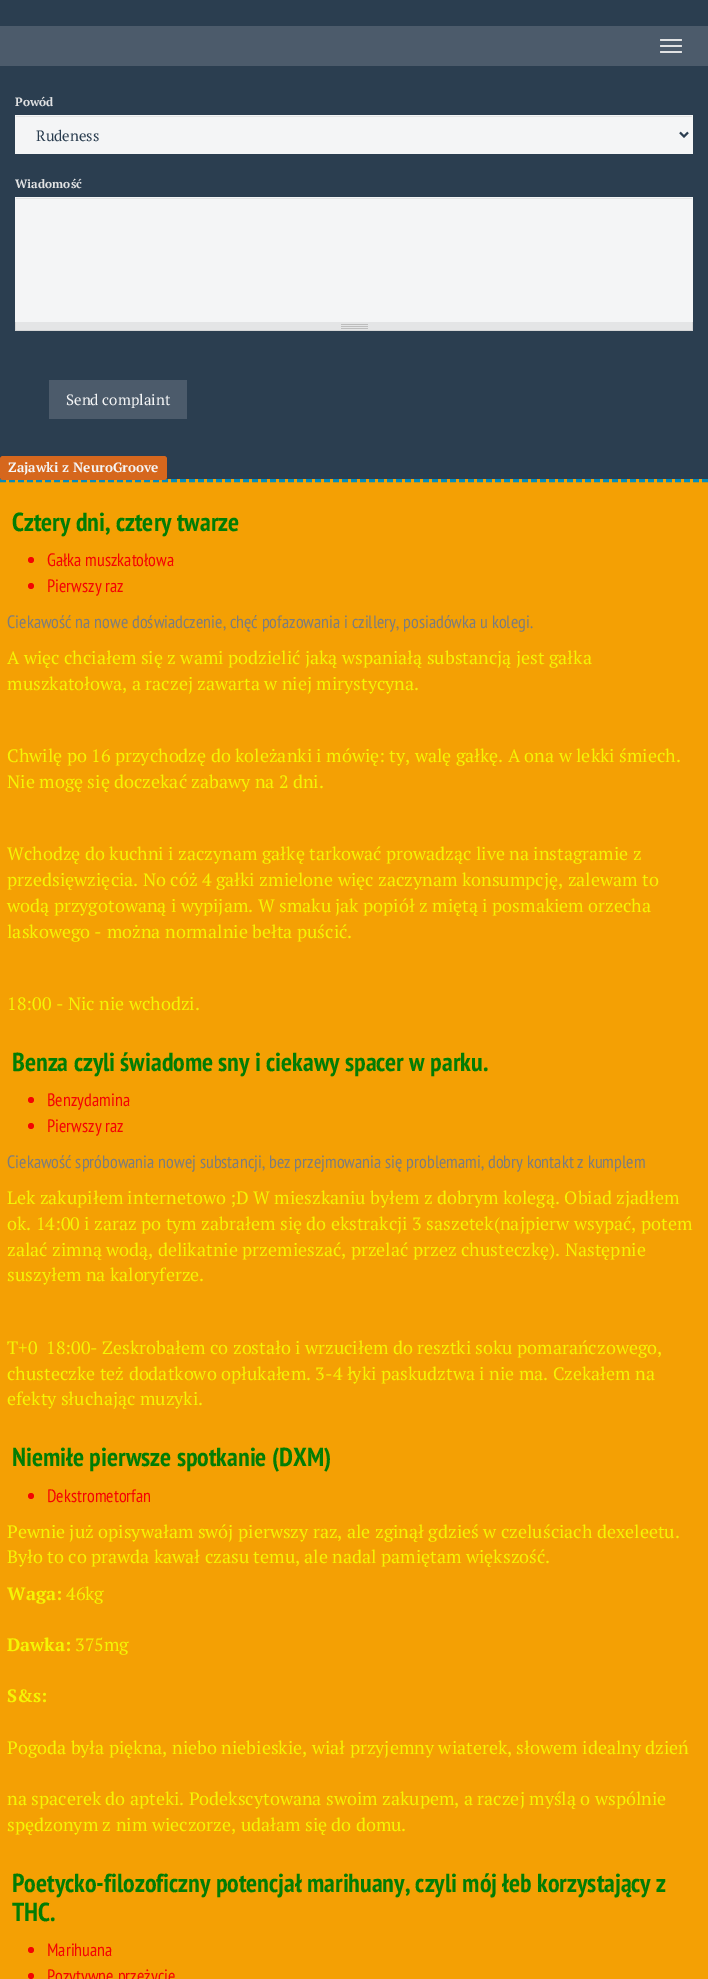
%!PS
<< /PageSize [708 1979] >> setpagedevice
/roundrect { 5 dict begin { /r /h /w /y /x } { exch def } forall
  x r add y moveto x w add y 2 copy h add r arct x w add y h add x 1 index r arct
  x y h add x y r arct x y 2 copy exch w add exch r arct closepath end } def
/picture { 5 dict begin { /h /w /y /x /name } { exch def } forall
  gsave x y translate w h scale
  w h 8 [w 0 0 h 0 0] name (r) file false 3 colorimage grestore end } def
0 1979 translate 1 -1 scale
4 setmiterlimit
0.169 0.243 0.314 setrgbcolor
0 0 708 1979 rectfill
0.298 0.357 0.42 setrgbcolor
0 26 708 40 rectfill
0.882 0.886 0.89 setrgbcolor
660 39 22 2 1 roundrect fill
660 45 22 2 1 roundrect fill
660 51 22 2 1 roundrect fill
/PTSerif-Bold [12 0 0 -12 0 0] selectfont
15 106 moveto (Powód) show
0.957 0.961 0.965 setrgbcolor
15 115 678 39 rectfill
0.886 0.89 0.894 setrgbcolor
16 116 676 1 rectfill
0.169 0.243 0.314 setrgbcolor
2 setlinewidth
newpath 680 132.5 moveto 684 136.5 lineto 688 132.5 lineto stroke
/PTSerif-Regular [15 0 0 -15 0 0] selectfont
36 141 moveto (Rudeness) show
/PTSerif-Bold [12 0 0 -12 0 0] selectfont
0.882 0.886 0.89 setrgbcolor
15 188 moveto (Wiadomość) show
0.957 0.961 0.965 setrgbcolor
15 197 678 125 rectfill
0.886 0.89 0.894 setrgbcolor
16 198 676 1 rectfill
0.894 0.898 0.902 setrgbcolor
16 322 676 8 rectfill
(img1.rgb) 341 324 27 5 picture
0.831 0.835 0.839 setrgbcolor
692 322 1 9 rectfill
15 330 678 1 rectfill
15 322 1 9 rectfill
0.298 0.357 0.42 setrgbcolor
49 380 138 39 rectfill
/PTSerif-Regular [15 0 0 -15 0 0] selectfont
0.957 0.961 0.965 setrgbcolor
66 405 moveto (Send complaint) show
0.957 0.627 0.016 setrgbcolor
0 479 708 1500 rectfill
0.016 0.553 0.741 setrgbcolor
3 setlinewidth
[6 3] 0 setdash
newpath 0 480.5 moveto 708 480.5 lineto stroke
0.839 0.404 0.114 setrgbcolor
0 456 167 24 3 roundrect fill
/PTSerif-Bold [13.5 0 0 -13.5 0 0] selectfont
0.957 0.961 0.965 setrgbcolor
8 472 moveto (Zajawki z NeuroGroove) show
/PTSansNarrow-Bold [26 0 0 -26 0 0] selectfont
0.008 0.49 0.016 setrgbcolor
12 531 moveto (Cztery dni, cztery twarze) show
0.957 0.012 0.016 setrgbcolor
newpath 31 560 3 0 360 arc closepath fill
/PTSansNarrow-Regular [18 0 0 -18 0 0] selectfont
47 566 moveto (Gałka muszkatołowa) show
newpath 31 586 3 0 360 arc closepath fill
47 592 moveto (Pierwszy raz) show
0.486 0.49 0.494 setrgbcolor
7 628 moveto (Ciekawość na nowe doświadczenie, chęć pofazowania i czillery, posiadówka u kolegi.) show
/PTSerif-Regular [18 0 0 -18 0 0] selectfont
0.957 0.961 0.016 setrgbcolor
7 664 moveto (A więc chciałem się z wami podzielić jaką wspaniałą substancją jest gałka) show
7 690 moveto (muszkatołowa, a raczej zawarta w niej mirystycyna.) show
7 762 moveto (Chwilę po 16 przychodzę do koleżanki i mówię: ty, walę gałkę. A ona w lekki śmiech.) show
7 788 moveto (Nie mogę się doczekać zabawy na 2 dni.) show
7 860 moveto (Wchodzę do kuchni i zaczynam gałkę tarkować prowadząc live na instagramie z) show
7 886 moveto (przedsięwzięcia. No cóż 4 gałki zmielone więc zaczynam konsumpcję, zalewam to) show
7 912 moveto (wodą przygotowaną i wypijam. W smaku jak popiół z miętą i posmakiem orzecha) show
7 938 moveto (laskowego - można normalnie bełta puścić.) show
7 1010 moveto (18:00 - Nic nie wchodzi.) show
/PTSansNarrow-Bold [26 0 0 -26 0 0] selectfont
0.008 0.49 0.016 setrgbcolor
12 1071 moveto (Benza czyli świadome sny i ciekawy spacer w parku.) show
0.957 0.012 0.016 setrgbcolor
newpath 31 1100 3 0 360 arc closepath fill
/PTSansNarrow-Regular [18 0 0 -18 0 0] selectfont
47 1106 moveto (Benzydamina) show
newpath 31 1126 3 0 360 arc closepath fill
47 1132 moveto (Pierwszy raz) show
0.486 0.49 0.494 setrgbcolor
7 1168 moveto (Ciekawość spróbowania nowej substancji, bez przejmowania się problemami, dobry kontakt z kumplem) show
/PTSerif-Regular [18 0 0 -18 0 0] selectfont
0.957 0.961 0.016 setrgbcolor
7 1204 moveto (Lek zakupiłem internetowo ;D W mieszkaniu byłem z dobrym kolegą. Obiad zjadłem) show
7 1230 moveto (ok. 14:00 i zaraz po tym zabrałem się do ekstrakcji 3 saszetek\(najpierw wsypać, potem) show
7 1256 moveto (zalać zimną wodą, delikatnie przemieszać, przelać przez chusteczkę\). Następnie) show
7 1281 moveto (suszyłem na kaloryferze.) show
7 1354 moveto (T+0  18:00- Zeskrobałem co zostało i wrzuciłem do resztki soku pomarańczowego,) show
7 1380 moveto (chusteczke też dodatkowo opłukałem. 3-4 łyki paskudztwa i nie ma. Czekałem na) show
7 1405 moveto (efekty słuchając muzyki.) show
/PTSansNarrow-Bold [26 0 0 -26 0 0] selectfont
0.008 0.49 0.016 setrgbcolor
12 1466 moveto (Niemiłe pierwsze spotkanie \(DXM\)) show
0.957 0.012 0.016 setrgbcolor
newpath 31 1496 3 0 360 arc closepath fill
/PTSansNarrow-Regular [18 0 0 -18 0 0] selectfont
47 1502 moveto (Dekstrometorfan) show
/PTSerif-Regular [18 0 0 -18 0 0] selectfont
0.957 0.961 0.016 setrgbcolor
7 1538 moveto (Pewnie już opisywałam swój pierwszy raz, ale zginął gdzieś w czeluściach dexeleetu.) show
7 1563 moveto (Było to co prawda kawał czasu temu, ale nadal pamiętam większość.) show
/PTSerif-Bold [18 0 0 -18 0 0] selectfont
7 1600 moveto (Waga:) show
/PTSerif-Regular [18 0 0 -18 0 0] selectfont
66 1600 moveto (46kg) show
/PTSerif-Bold [18 0 0 -18 0 0] selectfont
7 1651 moveto (Dawka:) show
/PTSerif-Regular [18 0 0 -18 0 0] selectfont
75 1651 moveto (375mg) show
/PTSerif-Bold [18 0 0 -18 0 0] selectfont
7 1702 moveto (S&s:) show
/PTSerif-Regular [18 0 0 -18 0 0] selectfont
7 1754 moveto (Pogoda była piękna, niebo niebieskie, wiał przyjemny wiaterek, słowem idealny dzień) show
7 1805 moveto (na spacerek do apteki. Podekscytowana swoim zakupem, a raczej myślą o wspólnie) show
7 1831 moveto (spędzonym z nim wieczorze, udałam się do domu.) show
/PTSansNarrow-Bold [26 0 0 -26 0 0] selectfont
0.008 0.49 0.016 setrgbcolor
12 1892 moveto (Poetycko-filozoficzny potencjał marihuany, czyli mój łeb korzystający z) show
12 1921 moveto (THC.) show
0.957 0.012 0.016 setrgbcolor
newpath 31 1950 3 0 360 arc closepath fill
/PTSansNarrow-Regular [18 0 0 -18 0 0] selectfont
47 1956 moveto (Marihuana) show
newpath 31 1976 3 0 360 arc closepath fill
47 1982 moveto (Pozytywne przeżycie) show
showpage
